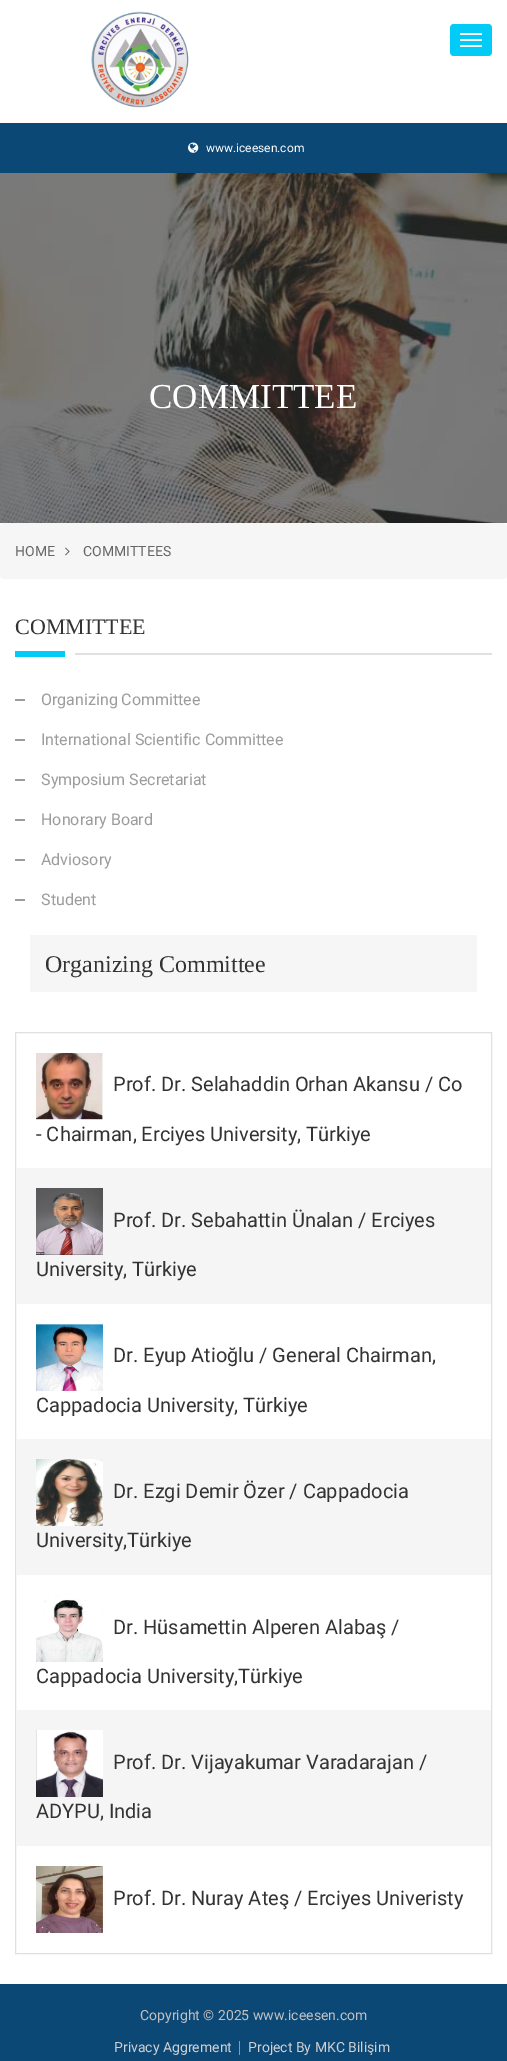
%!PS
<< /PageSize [507 2061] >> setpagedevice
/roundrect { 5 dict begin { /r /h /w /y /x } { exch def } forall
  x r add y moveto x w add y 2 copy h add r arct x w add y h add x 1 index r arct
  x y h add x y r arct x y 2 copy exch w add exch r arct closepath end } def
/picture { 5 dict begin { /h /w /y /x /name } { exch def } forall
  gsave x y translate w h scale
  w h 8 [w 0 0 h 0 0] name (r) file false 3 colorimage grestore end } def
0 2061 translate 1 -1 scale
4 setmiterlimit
1 setgray
0 0 507 2061 rectfill
(img1.rgb) 91 11 98 97 picture
0.008 0.796 0.969 setrgbcolor
450 24 42 32 4 roundrect fill
1 setgray
460 33 22 2 1 roundrect fill
460 39 22 2 1 roundrect fill
460 45 22 2 1 roundrect fill
0.047 0.282 0.463 setrgbcolor
0 123 507 50 rectfill
(img2.rgb) 188 142 11 11 picture
/Roboto-Regular [12 0 0 -12 0 0] selectfont
1 setgray
206 152 moveto (www.iceesen.com) show
(img3.rgb) 0 173 507 350 picture
/LiberationSerif-Regular [35 0 0 -35 0 0] selectfont
149 408 moveto (COMMITTEE) show
0.965 setgray
0 523 507 56 4 roundrect fill
/Roboto-Regular [14 0 0 -14 0 0] selectfont
0.4 setgray
15 556 moveto (HOME) show
(img4.rgb) 65 547 5 9 picture
83 556 moveto (COMMITTEES) show
0.878 setgray
75 653 417 2 rectfill
/LiberationSerif-Regular [22 0 0 -22 0 0] selectfont
0.2 setgray
15 634 moveto (COMMITTEE) show
0.008 0.796 0.969 setrgbcolor
15 651 50 6 rectfill
0.612 setgray
15 699 10 2 rectfill
/Roboto-Regular [16 0 0 -16 0 0] selectfont
41 705 moveto (Organizing Committee) show
15 739 10 2 rectfill
41 745 moveto (International Scientific Committee) show
15 779 10 2 rectfill
41 785 moveto (Symposium Secretariat) show
15 819 10 2 rectfill
41 825 moveto (Honorary Board) show
15 859 10 2 rectfill
41 865 moveto (Adviosory) show
15 899 10 2 rectfill
41 905 moveto (Student) show
0.965 setgray
30 935 447 57 rectfill
/LiberationSerif-Regular [24 0 0 -24 0 0] selectfont
0.2 setgray
45 972 moveto (Organizing Committee) show
0.878 setgray
15.5 1032.5 476 921 rectstroke
(img5.rgb) 36 1053 67 67 picture
/Roboto-Regular [20 0 0 -20 0 0] selectfont
0.2 setgray
113 1091 moveto (Prof. Dr. Selahaddin Orhan Akansu / Co) show
36 1141 moveto (- Chairman, Erciyes University, Türkiye) show
0.961 setgray
16 1168 475 136 rectfill
(img6.rgb) 36 1188 67 67 picture
0.2 setgray
113 1227 moveto (Prof. Dr. Sebahattin Ünalan / Erciyes) show
36 1276 moveto (University, Türkiye) show
(img7.rgb) 36 1324 67 67 picture
113 1362 moveto (Dr. Eyup Atioğlu / General Chairman,) show
36 1412 moveto (Cappadocia University, Türkiye) show
0.961 setgray
16 1439 475 136 rectfill
(img8.rgb) 36 1459 67 67 picture
0.2 setgray
113 1498 moveto (Dr. Ezgi Demir Özer / Cappadocia) show
36 1547 moveto (University,Türkiye) show
(img9.rgb) 36 1595 67 67 picture
113 1634 moveto (Dr. Hüsamettin Alperen Alabaş /) show
36 1683 moveto (Cappadocia University,Türkiye) show
0.961 setgray
16 1710 475 136 rectfill
(img10.rgb) 36 1730 67 67 picture
0.2 setgray
113 1769 moveto (Prof. Dr. Vijayakumar Varadarajan /) show
36 1818 moveto (ADYPU, India) show
(img11.rgb) 36 1866 67 67 picture
113 1905 moveto (Prof. Dr. Nuray Ateş / Erciyes Univeristy) show
0.047 0.282 0.463 setrgbcolor
0 1984 507 77 rectfill
/Roboto-Regular [14 0 0 -14 0 0] selectfont
0.761 0.753 0.753 setrgbcolor
140 2020 moveto (Copyright © 2025 www.iceesen.com) show
0.82 setgray
114 2052 moveto (Privacy Aggrement) show
0.494 0.624 0.647 setrgbcolor
239 2041 1 14 rectfill
0.82 setgray
248 2052 moveto (Project By MKC Bilişim) show
showpage
